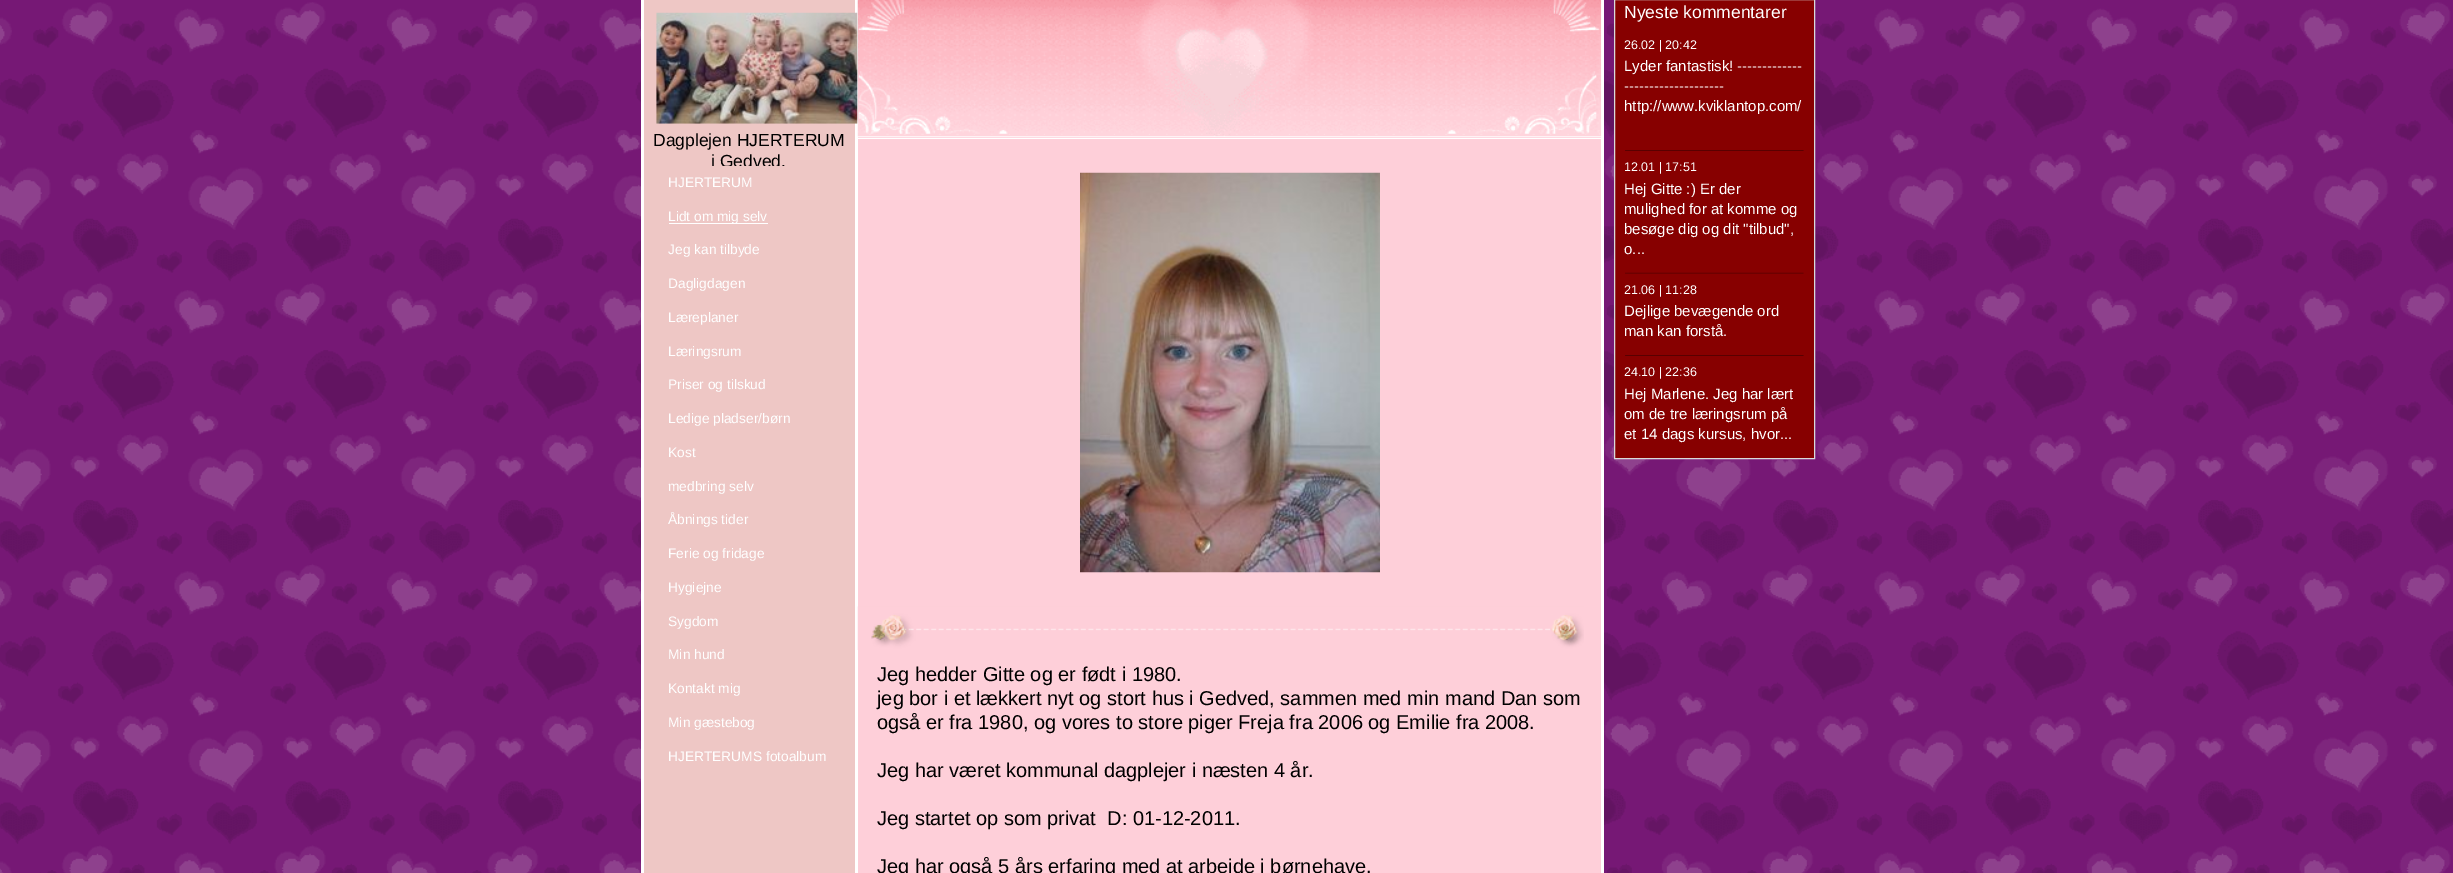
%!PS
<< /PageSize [2453 873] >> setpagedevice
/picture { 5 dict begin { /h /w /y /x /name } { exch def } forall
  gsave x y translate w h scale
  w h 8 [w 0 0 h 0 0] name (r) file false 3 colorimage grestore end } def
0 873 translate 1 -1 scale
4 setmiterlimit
0.463 0.094 0.459 setrgbcolor
0 0 2453 873 rectfill
(img1.rgb) 0 2 2453 871 picture
1 setgray
641 0 963 873 rectfill
0.933 0.78 0.773 setrgbcolor
644 0 211 873 rectfill
0.996 0.812 0.851 setrgbcolor
858 137 743 736 rectfill
(img3.rgb) 857 0 745 138 picture
(img2.rgb) 656 12 202 112 picture
/LiberationSans-Regular [17.5 0 0 -17.5 0 0] selectfont
0 setgray
653 146 moveto (Dagplejen HJERTERUM) show
711 167 moveto (i Gedved.) show
1 setgray
858 138 743 1 rectfill
(img4.rgb) 1080 172 300 401 picture
(img5.rgb) 857 606 727 44 picture
/LiberationSans-Regular [20 0 0 -20 0 0] selectfont
0 setgray
877 681 moveto (Jeg hedder Gitte og er født i 1980.) show
877 705 moveto (jeg bor i et lækkert nyt og stort hus i Gedved, sammen med min mand Dan som) show
877 729 moveto (også er fra 1980, og vores to store piger Freja fra 2006 og Emilie fra 2008.) show
877 777 moveto (Jeg har været kommunal dagplejer i næsten 4 år.) show
877 825 moveto (Jeg startet op som privat  D: 01-12-2011.) show
877 873 moveto (Jeg har også 5 års erfaring med at arbejde i børnehave.) show
0.529 0 0 setrgbcolor
newpath 1614.5 -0.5 moveto 1814.5 -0.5 lineto 1814.5 458.5 lineto 1614.5 458.5 lineto closepath gsave fill grestore
0.855 setgray
stroke
/LiberationSans-Regular [17.5 0 0 -17.5 0 0] selectfont
1 setgray
1624 18 moveto (Nyeste kommentarer) show
/LiberationSans-Regular [12.5 0 0 -12.5 0 0] selectfont
1624 49 moveto (26.02 | 20:42) show
/LiberationSans-Regular [15 0 0 -15 0 0] selectfont
1624 71 moveto (Lyder fantastisk! -------------) show
1624 91 moveto (--------------------) show
1624 111 moveto (http://www.kviklantop.com/) show
(img6.rgb) 1625 150 179 1 picture
/LiberationSans-Regular [12.5 0 0 -12.5 0 0] selectfont
1624 171 moveto (12.01 | 17:51) show
/LiberationSans-Regular [15 0 0 -15 0 0] selectfont
1624 194 moveto (Hej Gitte :\) Er der) show
1624 214 moveto (mulighed for at komme og) show
1624 234 moveto (besøge dig og dit "tilbud",) show
1624 254 moveto (o...) show
(img7.rgb) 1625 272 179 2 picture
/LiberationSans-Regular [12.5 0 0 -12.5 0 0] selectfont
1624 294 moveto (21.06 | 11:28) show
/LiberationSans-Regular [15 0 0 -15 0 0] selectfont
1624 316 moveto (Dejlige bevægende ord) show
1624 336 moveto (man kan forstå.) show
(img6.rgb) 1625 355 179 1 picture
/LiberationSans-Regular [12.5 0 0 -12.5 0 0] selectfont
1624 376 moveto (24.10 | 22:36) show
/LiberationSans-Regular [15 0 0 -15 0 0] selectfont
1624 399 moveto (Hej Marlene. Jeg har lært) show
1624 419 moveto (om de tre læringsrum på) show
1624 439 moveto (et 14 dags kursus, hvor...) show
0.933 0.78 0.773 setrgbcolor
712 166 73 2 rectfill
/LiberationSans-Regular [13.75 0 0 -13.75 0 0] selectfont
1 setgray
668 187 moveto (HJERTERUM) show
669 223 99 1 rectfill
668 221 moveto (Lidt om mig selv) show
668 254 moveto (Jeg kan tilbyde) show
668 288 moveto (Dagligdagen) show
668 322 moveto (Læreplaner) show
668 356 moveto (Læringsrum) show
668 389 moveto (Priser og tilskud) show
668 423 moveto (Ledige pladser/børn) show
668 457 moveto (Kost) show
668 491 moveto (medbring selv) show
668 524 moveto (Åbnings tider) show
668 558 moveto (Ferie og fridage) show
668 592 moveto (Hygiejne) show
668 626 moveto (Sygdom) show
668 659 moveto (Min hund) show
668 693 moveto (Kontakt mig) show
668 727 moveto (Min gæstebog) show
668 761 moveto (HJERTERUMS fotoalbum) show
showpage
